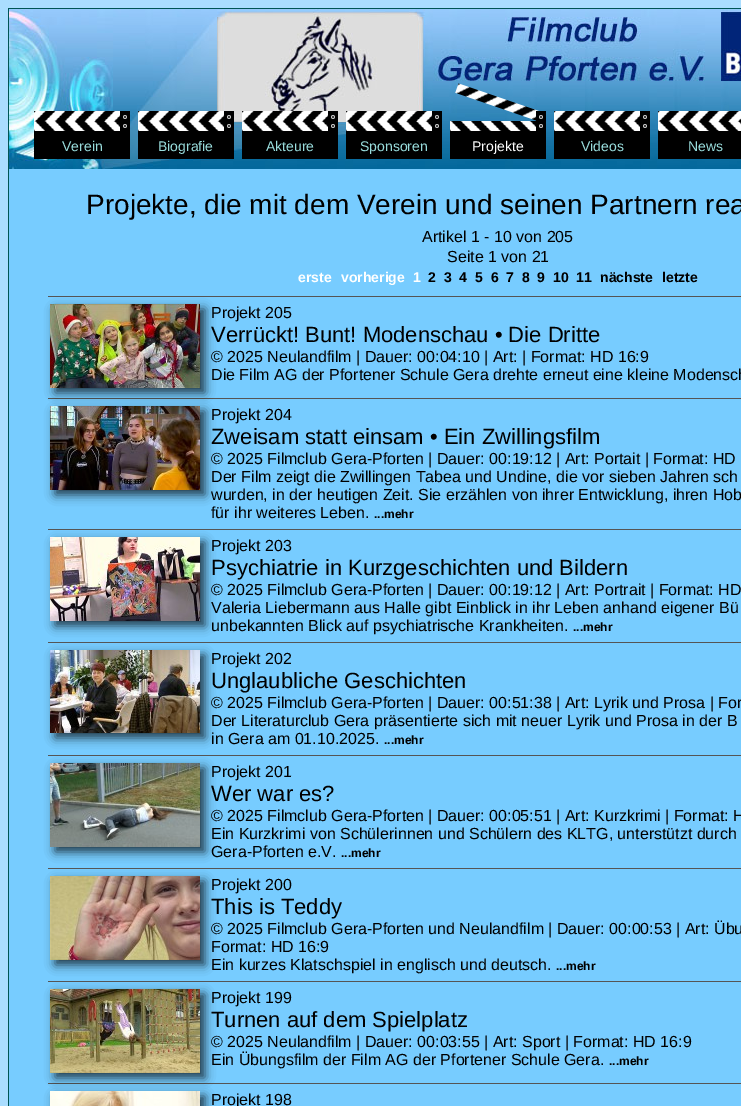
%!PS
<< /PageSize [741 1106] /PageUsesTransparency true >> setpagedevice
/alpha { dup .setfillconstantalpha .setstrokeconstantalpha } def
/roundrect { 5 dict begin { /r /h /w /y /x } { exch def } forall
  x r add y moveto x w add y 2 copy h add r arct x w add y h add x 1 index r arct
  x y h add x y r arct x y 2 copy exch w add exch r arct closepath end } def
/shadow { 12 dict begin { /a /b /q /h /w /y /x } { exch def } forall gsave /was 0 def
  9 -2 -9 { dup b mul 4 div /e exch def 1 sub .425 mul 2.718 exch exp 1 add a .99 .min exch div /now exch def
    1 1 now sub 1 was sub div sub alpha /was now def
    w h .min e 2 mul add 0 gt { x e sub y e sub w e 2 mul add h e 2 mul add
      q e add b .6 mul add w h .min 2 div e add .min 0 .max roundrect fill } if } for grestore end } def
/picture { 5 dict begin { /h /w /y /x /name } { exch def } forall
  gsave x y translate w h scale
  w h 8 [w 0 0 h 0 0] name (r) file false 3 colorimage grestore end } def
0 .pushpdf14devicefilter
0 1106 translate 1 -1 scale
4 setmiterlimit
0.667 0.867 1 setrgbcolor
0 0 741 1106 rectfill
0 0.333 0.333 setrgbcolor
8.5 8.5 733 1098 rectstroke
(img1.rgb) 9 9 732 160 picture
(img2.rgb) 34 111 96 48 picture
/LiberationSans-Regular [14 0 0 -14 0 0] selectfont
0.6 0.867 0.867 setrgbcolor
62 151 moveto (Verein) show
(img2.rgb) 138 111 96 48 picture
158 151 moveto (Biografie) show
(img2.rgb) 242 111 96 48 picture
266 151 moveto (Akteure) show
(img2.rgb) 346 111 96 48 picture
360 151 moveto (Sponsoren) show
(img3.rgb) 450 83 96 76 picture
1 setgray
472 151 moveto (Projekte) show
(img2.rgb) 554 111 96 48 picture
0.6 0.867 0.867 setrgbcolor
581 151 moveto (Videos) show
(img4.rgb) 658 111 83 48 picture
688 151 moveto (News) show
0.467 0.8 1 setrgbcolor
9 169 732 937 rectfill
/LiberationSans-Regular [28 0 0 -28 0 0] selectfont
0 setgray
86 214 moveto (Projekte, die mit dem Verein und seinen Partnern rea) show
/LiberationSans-Regular [16 0 0 -16 0 0] selectfont
422 242 moveto (Artikel 1 - 10 von 205) show
447 262 moveto (Seite 1 von 21) show
/LiberationSans-Bold [14 0 0 -14 0 0] selectfont
1 setgray
298 282 moveto (erste) show
341 282 moveto (vorherige) show
413 282 moveto (1) show
0 setgray
428 282 moveto (2) show
444 282 moveto (3) show
459 282 moveto (4) show
475 282 moveto (5) show
491 282 moveto (6) show
506 282 moveto (7) show
522 282 moveto (8) show
537 282 moveto (9) show
553 282 moveto (10) show
576 282 moveto (11) show
600 282 moveto (nächste) show
662 282 moveto (letzte) show
0.333 setgray
48 296 693 1 rectfill
48 398 693 1 rectfill
0 setgray
55 309 150 84 0 5 0.7 shadow
(img5.rgb) 50 304 150 84 picture
/LiberationSans-Regular [16 0 0 -16 0 0] selectfont
211 318 moveto (Projekt 205) show
/LiberationSans-Regular [22 0 0 -22 0 0] selectfont
211 342 moveto (Verrückt! Bunt! Modenschau • Die Dritte) show
/LiberationSans-Regular [16 0 0 -16 0 0] selectfont
211 362 moveto (© 2025 Neulandfilm | Dauer: 00:04:10 | Art: | Format: HD 16:9) show
211 380 moveto (Die Film AG der Pfortener Schule Gera drehte erneut eine kleine Modensch) show
0.333 setgray
48 529 693 1 rectfill
0 setgray
55 411 150 84 0 5 0.7 shadow
(img6.rgb) 50 406 150 84 picture
211 420 moveto (Projekt 204) show
/LiberationSans-Regular [22 0 0 -22 0 0] selectfont
211 444 moveto (Zweisam statt einsam • Ein Zwillingsfilm) show
/LiberationSans-Regular [16 0 0 -16 0 0] selectfont
211 464 moveto (© 2025 Filmclub Gera-Pforten | Dauer: 00:19:12 | Art: Portait | Format: HD) show
211 482 moveto (Der Film zeigt die Zwillingen Tabea und Undine, die vor sieben Jahren sch) show
211 500 moveto (wurden, in der heutigen Zeit. Sie erzählen von ihrer Entwicklung, ihren Hob) show
211 518 moveto (für ihr weiteres Leben.) show
/LiberationSans-Bold [12 0 0 -12 0 0] selectfont
374 518 moveto (...mehr) show
0.333 setgray
48 642 693 1 rectfill
0 setgray
55 542 150 84 0 5 0.7 shadow
(img7.rgb) 50 537 150 84 picture
/LiberationSans-Regular [16 0 0 -16 0 0] selectfont
211 551 moveto (Projekt 203) show
/LiberationSans-Regular [22 0 0 -22 0 0] selectfont
211 575 moveto (Psychiatrie in Kurzgeschichten und Bildern) show
/LiberationSans-Regular [16 0 0 -16 0 0] selectfont
211 595 moveto (© 2025 Filmclub Gera-Pforten | Dauer: 00:19:12 | Art: Portrait | Format: HD) show
211 613 moveto (Valeria Liebermann aus Halle gibt Einblick in ihr Leben anhand eigener Bü) show
211 631 moveto (unbekannten Blick auf psychiatrische Krankheiten.) show
/LiberationSans-Bold [12 0 0 -12 0 0] selectfont
573 631 moveto (...mehr) show
0.333 setgray
48 755 693 1 rectfill
0 setgray
55 655 150 83 0 5 0.7 shadow
(img8.rgb) 50 650 150 83 picture
/LiberationSans-Regular [16 0 0 -16 0 0] selectfont
211 664 moveto (Projekt 202) show
/LiberationSans-Regular [22 0 0 -22 0 0] selectfont
211 688 moveto (Unglaubliche Geschichten) show
/LiberationSans-Regular [16 0 0 -16 0 0] selectfont
211 708 moveto (© 2025 Filmclub Gera-Pforten | Dauer: 00:51:38 | Art: Lyrik und Prosa | For) show
211 726 moveto (Der Literaturclub Gera präsentierte sich mit neuer Lyrik und Prosa in der B) show
211 744 moveto (in Gera am 01.10.2025.) show
/LiberationSans-Bold [12 0 0 -12 0 0] selectfont
384 744 moveto (...mehr) show
0.333 setgray
48 868 693 1 rectfill
0 setgray
55 768 150 84 0 5 0.7 shadow
(img9.rgb) 50 763 150 84 picture
/LiberationSans-Regular [16 0 0 -16 0 0] selectfont
211 777 moveto (Projekt 201) show
/LiberationSans-Regular [22 0 0 -22 0 0] selectfont
211 801 moveto (Wer war es?) show
/LiberationSans-Regular [16 0 0 -16 0 0] selectfont
211 821 moveto (© 2025 Filmclub Gera-Pforten | Dauer: 00:05:51 | Art: Kurzkrimi | Format: H) show
211 839 moveto (Ein Kurzkrimi von Schülerinnen und Schülern des KLTG, unterstützt durch) show
211 857 moveto (Gera-Pforten e.V.) show
/LiberationSans-Bold [12 0 0 -12 0 0] selectfont
341 857 moveto (...mehr) show
0.333 setgray
48 981 693 1 rectfill
0 setgray
55 881 150 84 0 5 0.7 shadow
(img10.rgb) 50 876 150 84 picture
/LiberationSans-Regular [16 0 0 -16 0 0] selectfont
211 890 moveto (Projekt 200) show
/LiberationSans-Regular [22 0 0 -22 0 0] selectfont
211 914 moveto (This is Teddy) show
/LiberationSans-Regular [16 0 0 -16 0 0] selectfont
211 934 moveto (© 2025 Filmclub Gera-Pforten und Neulandfilm | Dauer: 00:00:53 | Art: Übu) show
211 952 moveto (Format: HD 16:9) show
211 970 moveto (Ein kurzes Klatschspiel in englisch und deutsch.) show
/LiberationSans-Bold [12 0 0 -12 0 0] selectfont
556 970 moveto (...mehr) show
0.333 setgray
48 1083 693 1 rectfill
0 setgray
55 994 150 84 0 5 0.7 shadow
(img11.rgb) 50 989 150 84 picture
/LiberationSans-Regular [16 0 0 -16 0 0] selectfont
211 1003 moveto (Projekt 199) show
/LiberationSans-Regular [22 0 0 -22 0 0] selectfont
211 1027 moveto (Turnen auf dem Spielplatz) show
/LiberationSans-Regular [16 0 0 -16 0 0] selectfont
211 1047 moveto (© 2025 Neulandfilm | Dauer: 00:03:55 | Art: Sport | Format: HD 16:9) show
211 1065 moveto (Ein Übungsfilm der Film AG der Pfortener Schule Gera.) show
/LiberationSans-Bold [12 0 0 -12 0 0] selectfont
609 1065 moveto (...mehr) show
55 1096 150 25 0 5 0.7 shadow
(img12.rgb) 50 1091 150 15 picture
/LiberationSans-Regular [16 0 0 -16 0 0] selectfont
211 1105 moveto (Projekt 198) show
.poppdf14devicefilter showpage
